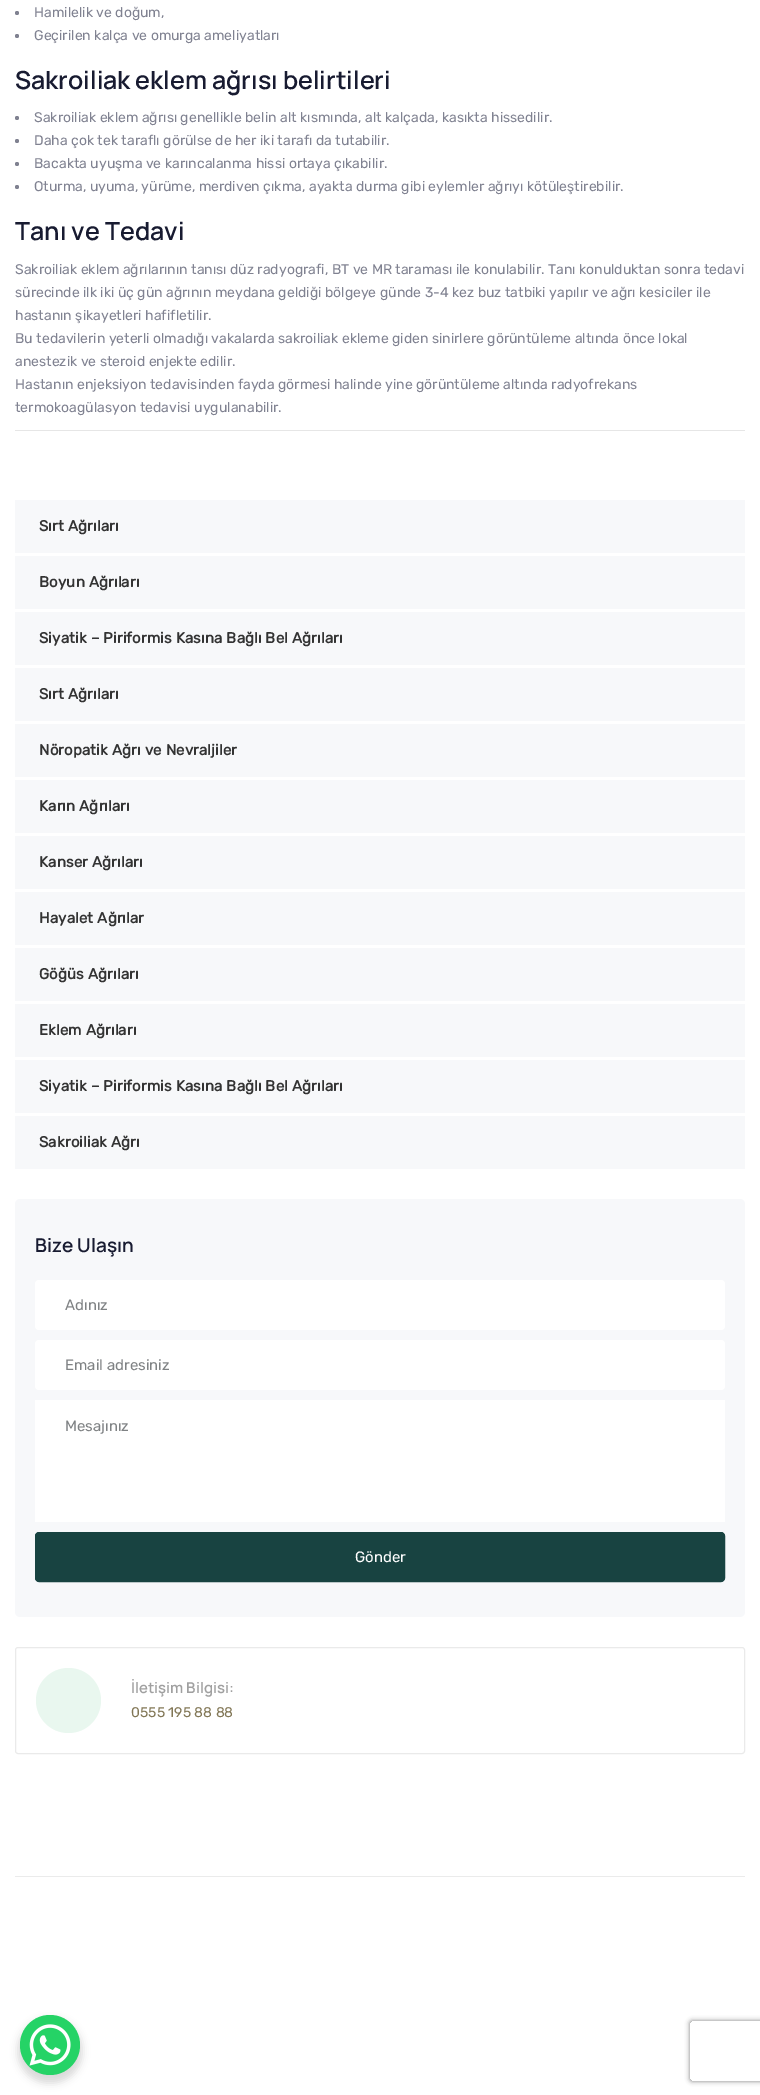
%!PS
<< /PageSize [760 2095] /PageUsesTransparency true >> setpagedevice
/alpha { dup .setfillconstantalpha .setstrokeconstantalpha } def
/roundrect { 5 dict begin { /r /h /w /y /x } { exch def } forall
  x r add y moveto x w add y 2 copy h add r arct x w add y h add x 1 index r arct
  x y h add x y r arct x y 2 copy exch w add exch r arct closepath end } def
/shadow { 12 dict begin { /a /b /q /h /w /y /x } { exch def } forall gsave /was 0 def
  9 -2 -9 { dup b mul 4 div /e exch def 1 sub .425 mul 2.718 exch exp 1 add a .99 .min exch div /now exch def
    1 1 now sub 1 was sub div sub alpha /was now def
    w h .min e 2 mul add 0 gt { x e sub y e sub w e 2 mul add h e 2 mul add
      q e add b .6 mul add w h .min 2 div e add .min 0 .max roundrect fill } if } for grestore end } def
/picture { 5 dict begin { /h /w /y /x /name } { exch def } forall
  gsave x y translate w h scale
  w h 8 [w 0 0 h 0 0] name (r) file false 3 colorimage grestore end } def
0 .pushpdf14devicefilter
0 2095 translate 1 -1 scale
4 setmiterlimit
1 setgray
0 0 760 2095 rectfill
0.502 0.51 0.569 setrgbcolor
newpath 17 13 2 0 360 arc closepath fill
/Rubik-Light [14 0 0 -14 0 0] selectfont
34 17 moveto (Hamilelik ve doğum,) show
newpath 17 36 2 0 360 arc closepath fill
34 40 moveto (Geçirilen kalça ve omurga ameliyatları) show
/Manrope-ExtraLight [25 0 0 -25 0 0] selectfont
0.094 0.106 0.192 setrgbcolor
15 89 moveto (Sakroiliak eklem ağrısı belirtileri) show
0.502 0.51 0.569 setrgbcolor
newpath 17 118 2 0 360 arc closepath fill
/Rubik-Light [14 0 0 -14 0 0] selectfont
34 122 moveto (Sakroiliak eklem ağrısı genellikle belin alt kısmında, alt kalçada, kasıkta hissedilir.) show
newpath 17 141 2 0 360 arc closepath fill
34 145 moveto (Daha çok tek taraflı görülse de her iki tarafı da tutabilir.) show
newpath 17 164 2 0 360 arc closepath fill
34 168 moveto (Bacakta uyuşma ve karıncalanma hissi ortaya çıkabilir.) show
newpath 17 187 2 0 360 arc closepath fill
34 191 moveto (Oturma, uyuma, yürüme, merdiven çıkma, ayakta durma gibi eylemler ağrıyı kötüleştirebilir.) show
/Manrope-ExtraLight [25 0 0 -25 0 0] selectfont
0.094 0.106 0.192 setrgbcolor
15 240 moveto (Tanı ve Tedavi) show
/Rubik-Light [14 0 0 -14 0 0] selectfont
0.502 0.51 0.569 setrgbcolor
15 274 moveto (Sakroiliak eklem ağrılarının tanısı düz radyografi, BT ve MR taraması ile konulabilir. Tanı konulduktan sonra tedavi) show
15 297 moveto (sürecinde ilk iki üç gün ağrının meydana geldiği bölgeye günde 3-4 kez buz tatbiki yapılır ve ağrı kesiciler ile) show
15 320 moveto (hastanın şikayetleri hafifletilir.) show
15 343 moveto (Bu tedavilerin yeterli olmadığı vakalarda sakroiliak ekleme giden sinirlere görüntüleme altında önce lokal) show
15 366 moveto (anestezik ve steroid enjekte edilir.) show
15 389 moveto (Hastanın enjeksiyon tedavisinden fayda görmesi halinde yine görüntüleme altında radyofrekans) show
15 412 moveto (termokoagülasyon tedavisi uygulanabilir.) show
0.902 setgray
15 430 730 1 rectfill
0.969 0.973 0.98 setrgbcolor
15 500 730 53 rectfill
/Rubik-Bold [15 0 0 -15 0 0] selectfont
0.2 setgray
39 531 moveto 0.15 0 (Sırt Ağrıları) ashow
0.969 0.973 0.98 setrgbcolor
15 556 730 53 rectfill
0.2 setgray
39 587 moveto 0.15 0 (Boyun Ağrıları) ashow
0.969 0.973 0.98 setrgbcolor
15 612 730 53 rectfill
0.2 setgray
39 643 moveto 0.15 0 (Siyatik – Piriformis Kasına Bağlı Bel Ağrıları) ashow
0.969 0.973 0.98 setrgbcolor
15 668 730 53 rectfill
0.2 setgray
39 699 moveto 0.15 0 (Sırt Ağrıları) ashow
0.969 0.973 0.98 setrgbcolor
15 724 730 53 rectfill
0.2 setgray
39 755 moveto 0.15 0 (Nöropatik Ağrı ve Nevraljiler) ashow
0.969 0.973 0.98 setrgbcolor
15 780 730 53 rectfill
0.2 setgray
39 811 moveto 0.15 0 (Karın Ağrıları) ashow
0.969 0.973 0.98 setrgbcolor
15 836 730 53 rectfill
0.2 setgray
39 867 moveto 0.15 0 (Kanser Ağrıları) ashow
0.969 0.973 0.98 setrgbcolor
15 892 730 53 rectfill
0.2 setgray
39 923 moveto 0.15 0 (Hayalet Ağrılar) ashow
0.969 0.973 0.98 setrgbcolor
15 948 730 53 rectfill
0.2 setgray
39 979 moveto 0.15 0 (Göğüs Ağrıları) ashow
0.969 0.973 0.98 setrgbcolor
15 1004 730 53 rectfill
0.2 setgray
39 1035 moveto 0.15 0 (Eklem Ağrıları) ashow
0.969 0.973 0.98 setrgbcolor
15 1060 730 53 rectfill
0.2 setgray
39 1091 moveto 0.15 0 (Siyatik – Piriformis Kasına Bağlı Bel Ağrıları) ashow
0.969 0.973 0.98 setrgbcolor
15 1116 730 53 rectfill
0.2 setgray
39 1147 moveto 0.15 0 (Sakroiliak Ağrı) ashow
0.969 0.973 0.98 setrgbcolor
15 1199 730 418 5 roundrect fill
/Manrope-ExtraLight [19 0 0 -19 0 0] selectfont
0.094 0.106 0.192 setrgbcolor
35 1252 moveto (Bize Ulaşın) show
1 setgray
35 1280 690 50 4 roundrect fill
/Rubik-Light [15 0 0 -15 0 0] selectfont
0.498 0.51 0.518 setrgbcolor
65 1310 moveto (Adınız) show
1 setgray
35 1340 690 50 4 roundrect fill
0.498 0.51 0.518 setrgbcolor
65 1370 moveto (Email adresiniz) show
1 setgray
35 1400 690 122 rectfill
0.498 0.51 0.518 setrgbcolor
65 1431 moveto (Mesajınız) show
0.094 0.263 0.255 setrgbcolor
35.5 1532.5 689 49 3.5 roundrect gsave fill grestore
stroke
1 setgray
355 1562 moveto (Gönder) show
0.918 setgray
15.5 1647.5 729 106 2.5 roundrect stroke
0.914 0.969 0.937 setrgbcolor
newpath 68.5 1700.5 32.5 0 360 arc closepath fill
/Manrope-ExtraLight [15 0 0 -15 0 0] selectfont
0.627 setgray
131 1693 moveto (İletişim Bilgisi:) show
/Rubik-Light [14 0 0 -14 0 0] selectfont
0.506 0.463 0.333 setrgbcolor
131 1717 moveto (0555 195 88 88) show
0.922 setgray
15 1876 730 1 rectfill
0 setgray
18 2019 64 64 32 4 0.15 shadow
0.145 0.827 0.4 setrgbcolor
newpath 50 2045 30 0 360 arc closepath fill
(img1.rgb) 29 2024 42 42 picture
gsave
newpath 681 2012 moveto 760 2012 lineto 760 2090 lineto 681 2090 lineto closepath 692 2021 moveto 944 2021 lineto 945 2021 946 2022 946 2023 curveto 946 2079 lineto 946 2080 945 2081 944 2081 curveto 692 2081 lineto 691 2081 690 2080 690 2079 curveto 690 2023 lineto 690 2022 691 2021 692 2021 curveto closepath eoclip newpath
0.502 setgray
690 2021 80 60 2 2.5 1 shadow
grestore
.poppdf14devicefilter showpage
